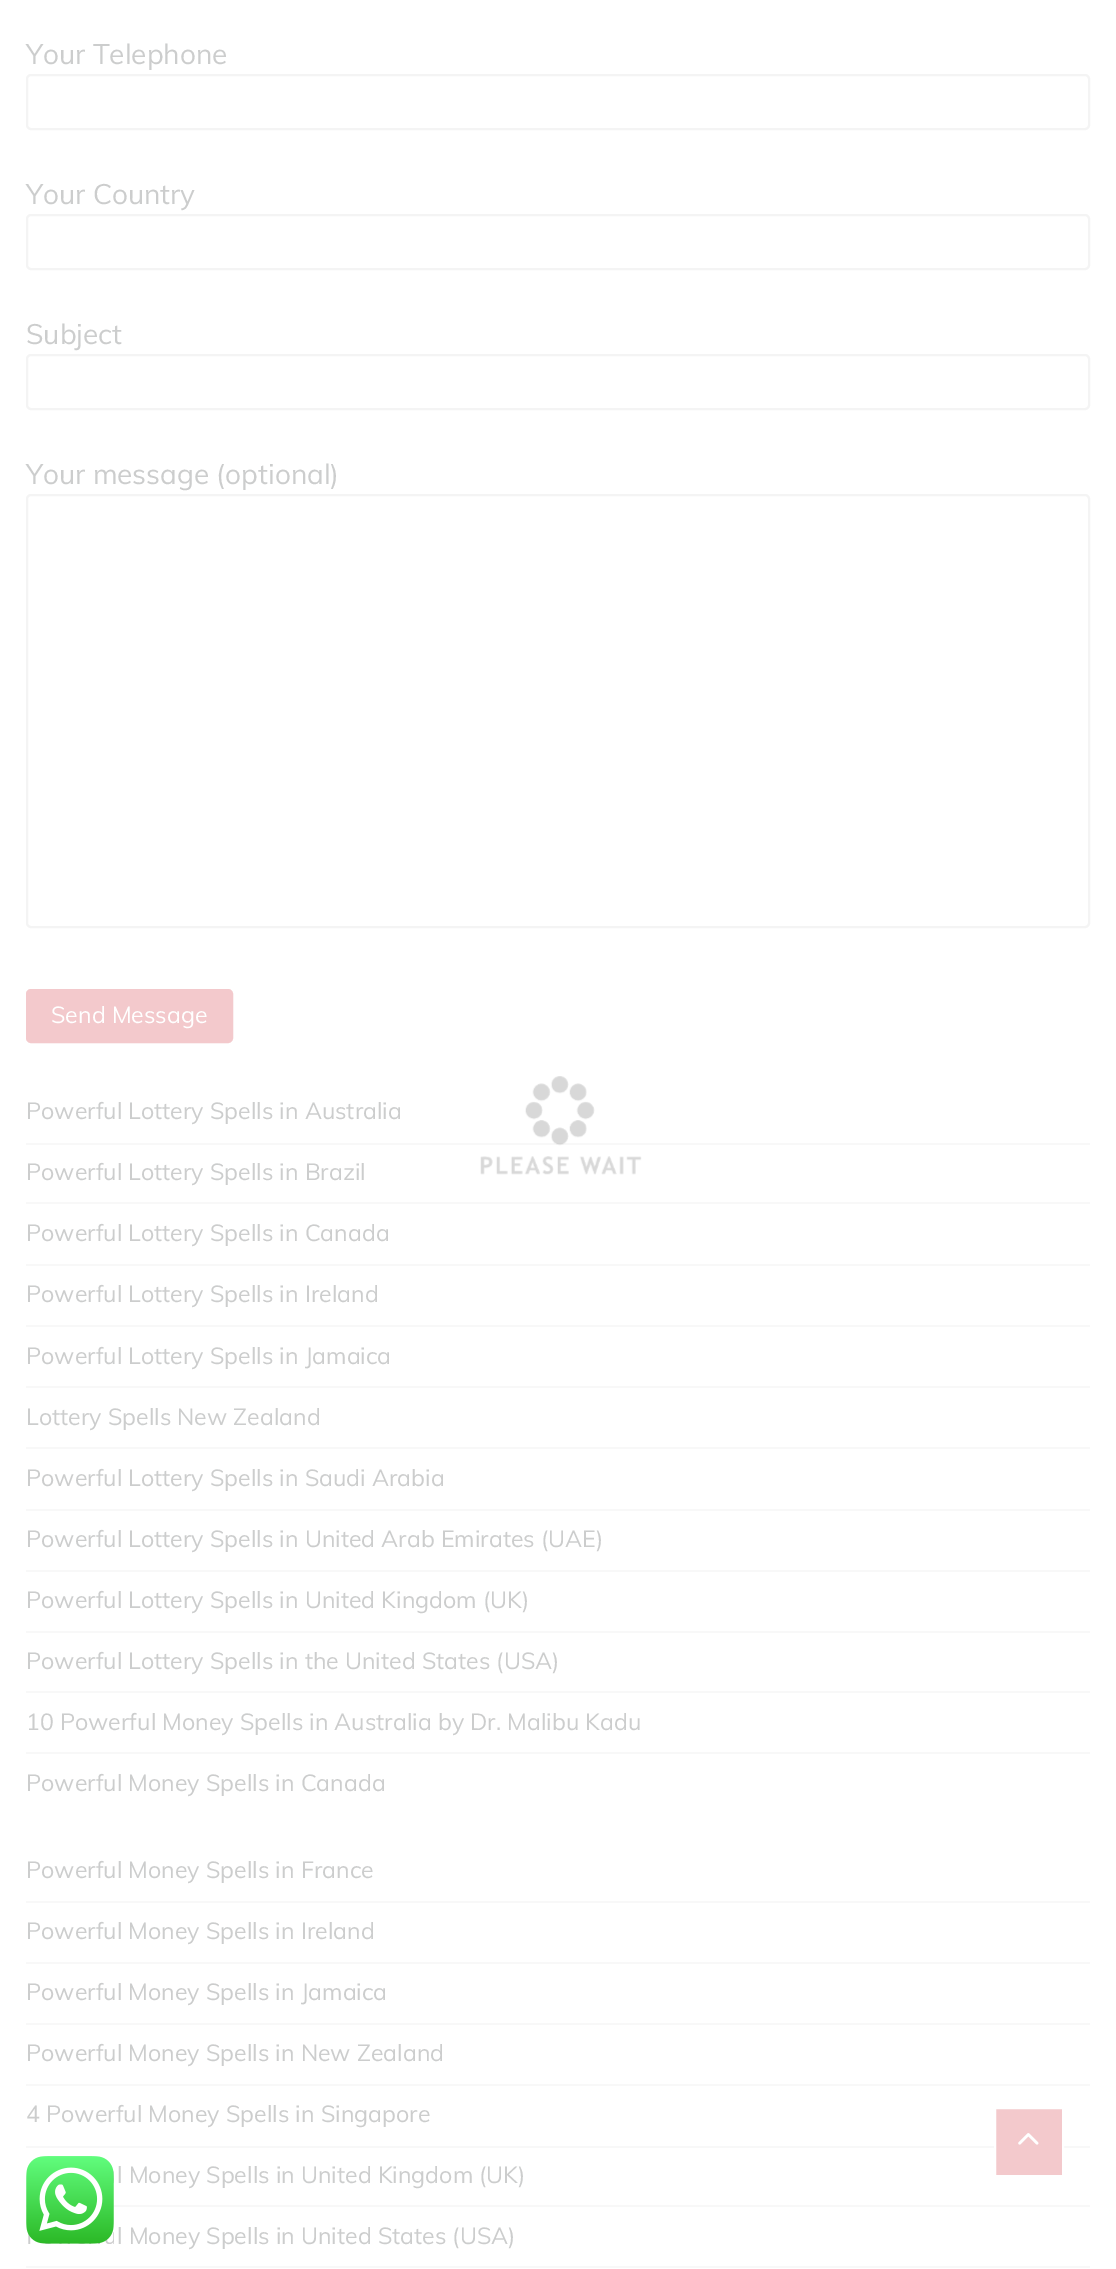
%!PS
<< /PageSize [1116 2269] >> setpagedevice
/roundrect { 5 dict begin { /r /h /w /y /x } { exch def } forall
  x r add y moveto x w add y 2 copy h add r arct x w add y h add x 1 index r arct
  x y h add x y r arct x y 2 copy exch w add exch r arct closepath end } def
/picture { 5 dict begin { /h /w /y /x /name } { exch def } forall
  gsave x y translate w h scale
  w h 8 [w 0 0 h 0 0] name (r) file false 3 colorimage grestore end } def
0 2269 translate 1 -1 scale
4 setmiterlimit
1 setgray
0 0 1116 2269 rectfill
/Muli-Regular [28 0 0 -28 0 0] selectfont
0.8 0.804 0.804 setrgbcolor
26 64 moveto (Your Telephone) show
0.957 setgray
2 setlinewidth
27 75 1062 54 4 roundrect stroke
0.8 0.804 0.804 setrgbcolor
26 204 moveto (Your Country) show
0.957 setgray
27 215 1062 54 4 roundrect stroke
0.8 0.804 0.804 setrgbcolor
26 344 moveto (Subject) show
0.957 setgray
27 355 1062 54 4 roundrect stroke
0.8 0.804 0.804 setrgbcolor
26 484 moveto (Your message \(optional\)) show
0.957 setgray
27 495 1062 432 4 roundrect stroke
0.953 0.788 0.8 setrgbcolor
27 990 205 52 4 roundrect gsave fill grestore
stroke
/Muli-Regular [23.2 0 0 -23.2 0 0] selectfont
1 setgray
51 1023 moveto (Send Message) show
0.973 setgray
26 1143 1064 2 rectfill
0.8 0.804 0.804 setrgbcolor
26 1119 moveto (Powerful Lottery Spells in Australia) show
0.973 setgray
26 1202 1064 2 rectfill
0.8 0.804 0.804 setrgbcolor
26 1180 moveto (Powerful Lottery Spells in Brazil) show
0.973 setgray
26 1264 1064 2 rectfill
0.8 0.804 0.804 setrgbcolor
26 1241 moveto (Powerful Lottery Spells in Canada) show
0.973 setgray
26 1325 1064 2 rectfill
0.8 0.804 0.804 setrgbcolor
26 1302 moveto (Powerful Lottery Spells in Ireland) show
0.973 setgray
26 1386 1064 2 rectfill
0.8 0.804 0.804 setrgbcolor
26 1364 moveto (Powerful Lottery Spells in Jamaica) show
0.973 setgray
26 1447 1064 2 rectfill
0.8 0.804 0.804 setrgbcolor
26 1425 moveto (Lottery Spells New Zealand) show
0.973 setgray
26 1509 1064 2 rectfill
0.8 0.804 0.804 setrgbcolor
26 1486 moveto (Powerful Lottery Spells in Saudi Arabia) show
0.973 setgray
26 1570 1064 2 rectfill
0.8 0.804 0.804 setrgbcolor
26 1547 moveto (Powerful Lottery Spells in United Arab Emirates \(UAE\)) show
0.973 setgray
26 1631 1064 2 rectfill
0.8 0.804 0.804 setrgbcolor
26 1608 moveto (Powerful Lottery Spells in United Kingdom \(UK\)) show
0.973 setgray
26 1691 1064 2 rectfill
0.8 0.804 0.804 setrgbcolor
26 1669 moveto (Powerful Lottery Spells in the United States \(USA\)) show
0.973 setgray
26 1752 1064 2 rectfill
0.8 0.804 0.804 setrgbcolor
26 1730 moveto (10 Powerful Money Spells in Australia by Dr. Malibu Kadu) show
26 1791 moveto (Powerful Money Spells in Canada) show
0.973 setgray
26 1901 1064 2 rectfill
0.8 0.804 0.804 setrgbcolor
26 1878 moveto (Powerful Money Spells in France) show
0.973 setgray
26 1962 1064 2 rectfill
0.8 0.804 0.804 setrgbcolor
26 1939 moveto (Powerful Money Spells in Ireland) show
0.973 setgray
26 2023 1064 2 rectfill
0.8 0.804 0.804 setrgbcolor
26 2000 moveto (Powerful Money Spells in Jamaica) show
0.973 setgray
26 2084 1064 2 rectfill
0.8 0.804 0.804 setrgbcolor
26 2061 moveto (Powerful Money Spells in New Zealand) show
0.973 setgray
26 2146 1064 2 rectfill
0.8 0.804 0.804 setrgbcolor
26 2122 moveto (4 Powerful Money Spells in Singapore) show
0.973 setgray
26 2205 1064 2 rectfill
0.8 0.804 0.804 setrgbcolor
117 2183 moveto (l Money Spells in United Kingdom \(UK\)) show
0.973 setgray
26 2266 1064 2 rectfill
0.8 0.804 0.804 setrgbcolor
117 2244 moveto (l Money Spells in United States \(USA\)) show
(img1.rgb) 480 1076 162 99 picture
0.953 0.788 0.8 setrgbcolor
newpath 995 2108 moveto 1063 2108 lineto 1063 2176 lineto 995 2176 lineto closepath gsave fill grestore
1 setgray
stroke
(img2.rgb) 1018 2133 21 12 picture
(img3.rgb) 26 2156 88 88 picture
showpage
